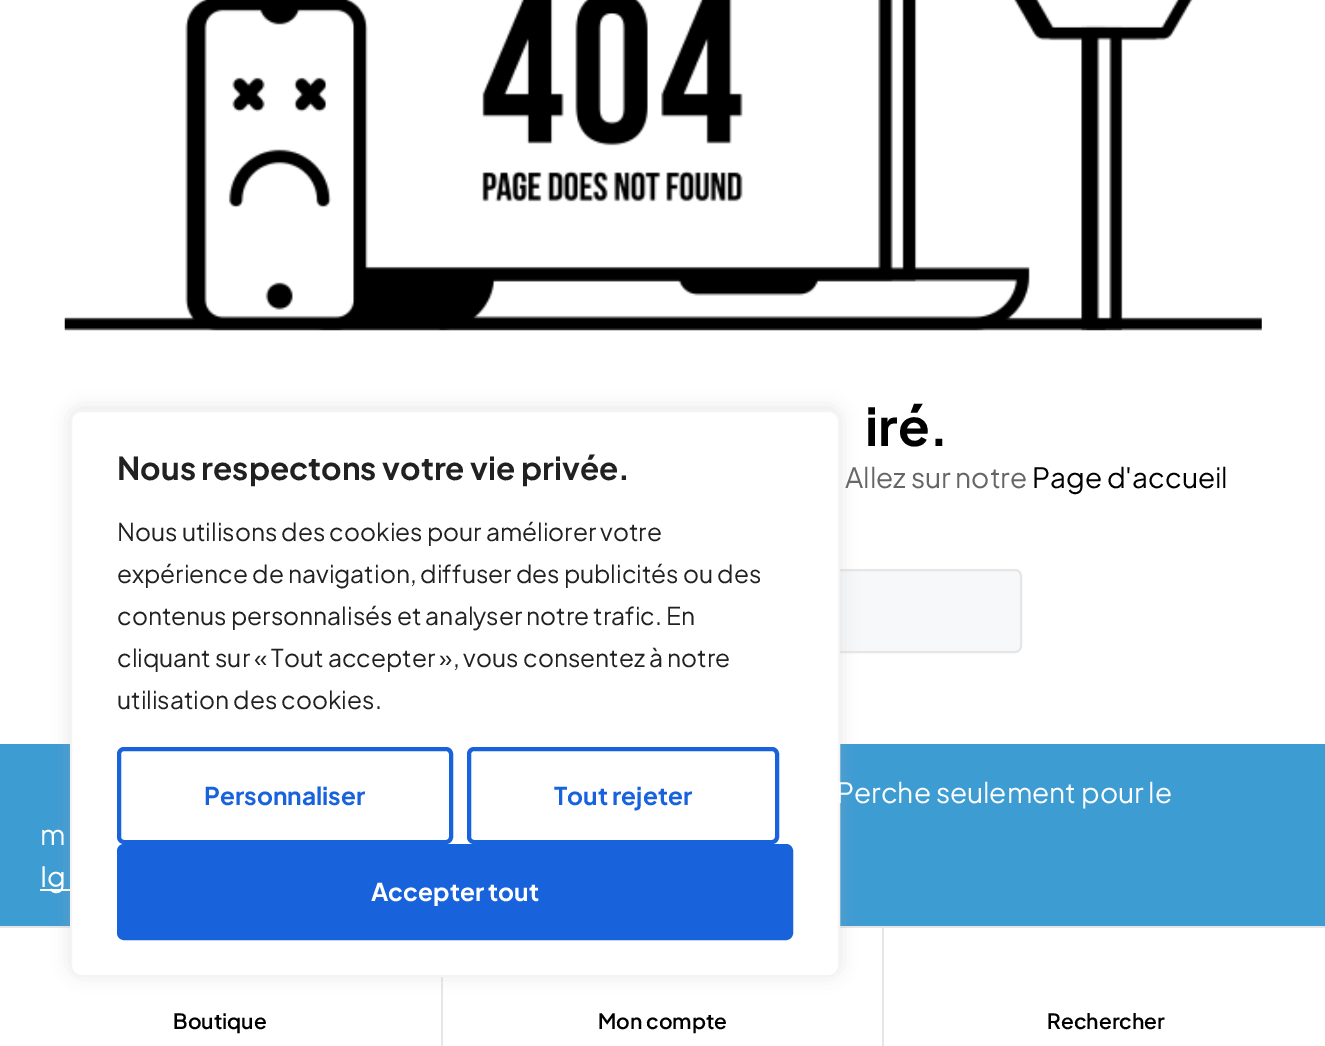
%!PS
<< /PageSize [1325 1046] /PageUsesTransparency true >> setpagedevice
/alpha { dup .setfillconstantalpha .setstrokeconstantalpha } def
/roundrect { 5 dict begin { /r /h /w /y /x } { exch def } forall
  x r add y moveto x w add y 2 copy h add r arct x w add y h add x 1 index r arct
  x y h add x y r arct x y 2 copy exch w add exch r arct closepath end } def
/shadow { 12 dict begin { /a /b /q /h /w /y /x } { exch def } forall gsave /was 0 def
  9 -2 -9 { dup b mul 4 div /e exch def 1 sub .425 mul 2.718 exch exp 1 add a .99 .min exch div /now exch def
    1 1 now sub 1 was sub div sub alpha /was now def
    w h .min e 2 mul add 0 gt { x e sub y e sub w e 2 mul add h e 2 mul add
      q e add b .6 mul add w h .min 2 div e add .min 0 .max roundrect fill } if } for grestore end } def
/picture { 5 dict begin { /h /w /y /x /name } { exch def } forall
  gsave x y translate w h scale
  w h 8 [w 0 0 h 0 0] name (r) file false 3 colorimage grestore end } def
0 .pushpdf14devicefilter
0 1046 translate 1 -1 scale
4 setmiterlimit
1 setgray
0 0 1325 1046 rectfill
(img1.rgb) 64 0 1198 331 picture
/PlusJakartaSans-Bold [52 0 0 -52 0 0] selectfont
0 setgray
865 446 moveto (iré.) show
/PlusJakartaSans-Regular [28 0 0 -28 0 0] selectfont
0.4 setgray
845 488 moveto (Allez sur notre) show
0 setgray
1032 488 moveto (Page d'accueil) show
0.969 0.973 0.98 setrgbcolor
306 570 715 82 6 roundrect gsave fill grestore
0.902 setgray
2 setlinewidth
stroke
0 926 1325 2 rectfill
441 977 2 69 rectfill
/PlusJakartaSans-SemiBold [21 0 0 -21 0 0] selectfont
0 setgray
173 1029 moveto (Boutique) show
0.902 setgray
882 928 2 118 rectfill
0 setgray
598 1029 moveto (Mon compte) show
1047 1029 moveto (Rechercher) show
0.239 0.612 0.824 setrgbcolor
0 744 1325 182 rectfill
1 setgray
40 889 30 2 rectfill
0.675 0.671 0.671 setrgbcolor
70 408 770 567 11 9 0.3 shadow
1 setgray
71 411 768 565 10 roundrect gsave fill grestore
0.957 setgray
stroke
/PlusJakartaSans-Bold [31.5 0 0 -31.5 0 0] selectfont
0.129 setgray
117 480 moveto (Nous respectons votre vie privée.) show
/PlusJakartaSans-Regular [24.5 0 0 -24.5 0 0] selectfont
117 541 moveto (Nous utilisons des cookies pour améliorer votre) show
117 583 moveto (expérience de navigation, diffuser des publicités ou des) show
117 625 moveto (contenus personnalisés et analyser notre trafic. En) show
117 667 moveto (cliquant sur « Tout accepter », vous consentez à notre) show
117 709 moveto (utilisation des cookies.) show
0.094 0.388 0.863 setrgbcolor
4 setlinewidth
119 749 332 93 5 roundrect stroke
/PlusJakartaSans-Bold [24.5 0 0 -24.5 0 0] selectfont
204 805 moveto (Personnaliser) show
469 749 308 93 5 roundrect stroke
554 805 moveto (Tout rejeter) show
119 846 672 92 5 roundrect gsave fill grestore
stroke
1 setgray
371 901 moveto (Accepter tout) show
/PlusJakartaSans-Regular [28 0 0 -28 0 0] selectfont
836 803 moveto (Perche seulement pour le) show
40 845 moveto (m) show
40 887 moveto (Ig) show
.poppdf14devicefilter showpage
